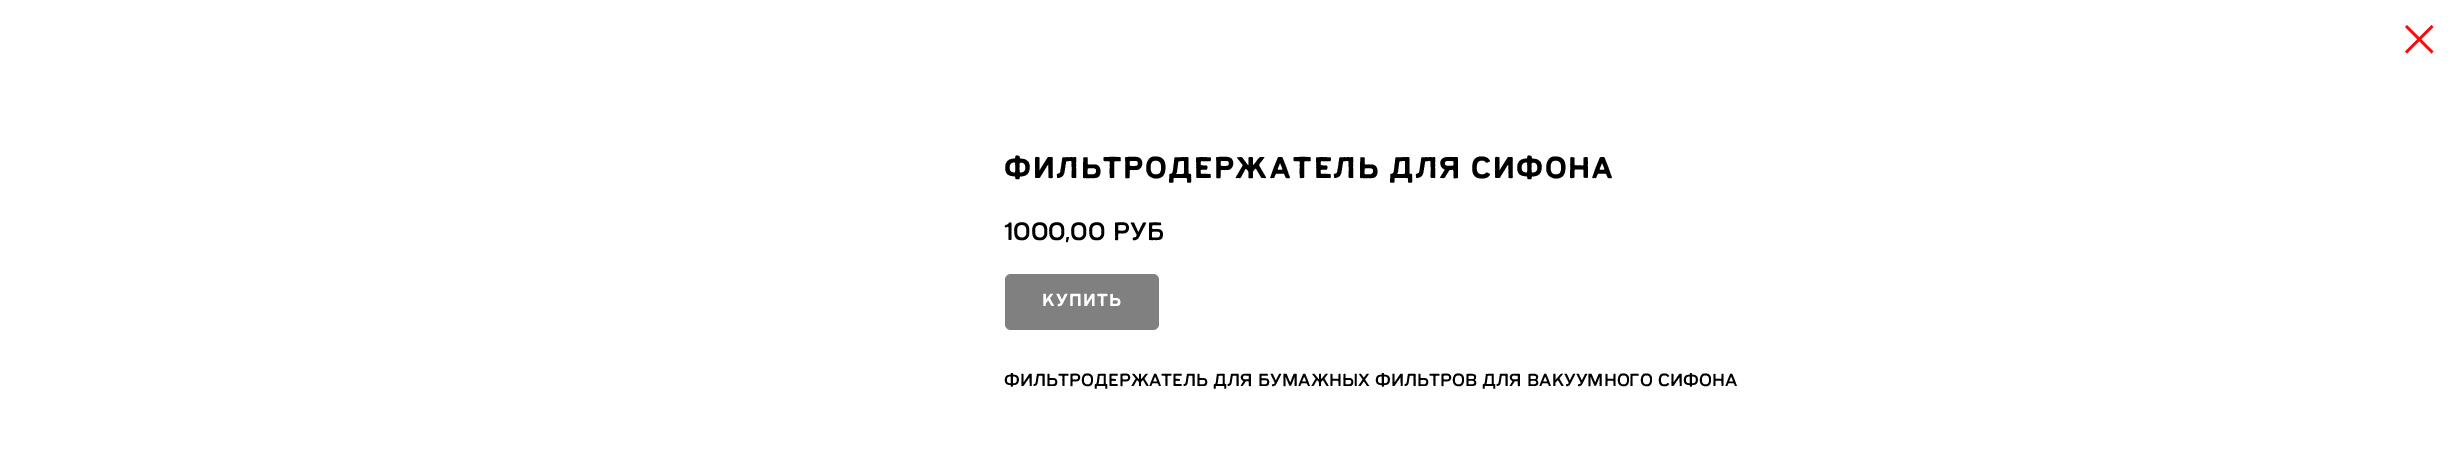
%!PS
<< /PageSize [2458 449] >> setpagedevice
/roundrect { 5 dict begin { /r /h /w /y /x } { exch def } forall
  x r add y moveto x w add y 2 copy h add r arct x w add y h add x 1 index r arct
  x y h add x y r arct x y 2 copy exch w add exch r arct closepath end } def
0 449 translate 1 -1 scale
4 setmiterlimit
1 setgray
0 0 2458 449 rectfill
0.988 0.039 0.039 setrgbcolor
newpath 2405 27 moveto 2407 25 lineto 2433.5 51.5 lineto 2431.5 53.5 lineto closepath eofill
newpath 2431.5 25 moveto 2433.5 27 lineto 2407 53.5 lineto 2405 51.5 lineto closepath eofill
/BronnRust-Bold [30 0 0 -30 0 0] selectfont
0 setgray
1004 178 moveto (Фильтродержатель для сифона) show
/BronnRust-Medium [25 0 0 -25 0 0] selectfont
1004 240 moveto (1000,00) show
1113 240 moveto (руб) show
0.502 setgray
1005 274 154 56 6 roundrect fill
/BronnRust-Bold [17.5 0 0 -17.5 0 0] selectfont
1 setgray
1042 306 moveto (КУПИТЬ) show
/BronnRust-Medium [17.5 0 0 -17.5 0 0] selectfont
0 setgray
1004 386 moveto (Фильтродержатель для бумажных фильтров для вакуумного сифона) show
showpage
